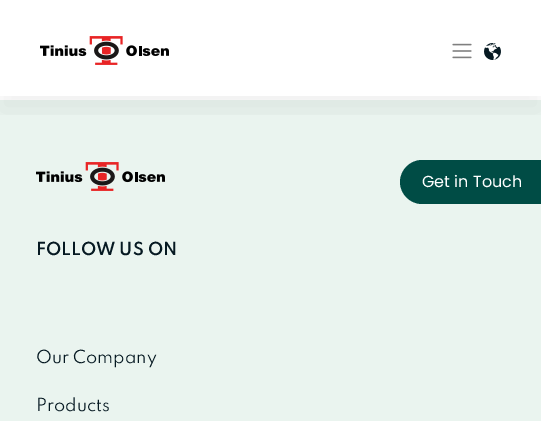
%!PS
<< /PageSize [541 421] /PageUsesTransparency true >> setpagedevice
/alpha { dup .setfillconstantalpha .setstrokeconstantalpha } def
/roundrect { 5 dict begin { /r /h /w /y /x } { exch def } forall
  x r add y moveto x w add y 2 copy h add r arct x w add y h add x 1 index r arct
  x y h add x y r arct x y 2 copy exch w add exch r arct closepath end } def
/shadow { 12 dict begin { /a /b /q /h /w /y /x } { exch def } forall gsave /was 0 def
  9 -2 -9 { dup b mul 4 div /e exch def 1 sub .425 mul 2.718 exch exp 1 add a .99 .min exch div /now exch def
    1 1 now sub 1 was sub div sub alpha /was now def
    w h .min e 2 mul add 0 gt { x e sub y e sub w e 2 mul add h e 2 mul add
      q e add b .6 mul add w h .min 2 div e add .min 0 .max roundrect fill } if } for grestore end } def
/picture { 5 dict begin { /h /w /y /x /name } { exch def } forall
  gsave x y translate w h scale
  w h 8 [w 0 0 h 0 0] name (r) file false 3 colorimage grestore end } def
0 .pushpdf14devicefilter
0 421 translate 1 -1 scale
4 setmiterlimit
1 setgray
0 0 541 421 rectfill
0.918 0.957 0.937 setrgbcolor
0 100 541 321 rectfill
gsave
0 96 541 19 rectclip
0 setgray
0 15 541 96 0 15 0.05 shadow
grestore
(img1.rgb) 40 36 129 29 picture
(img2.rgb) 452 43 20 16 picture
(img3.rgb) 484 43 17 17 picture
0 0.298 0.271 setrgbcolor
newpath 422 160 moveto 540 160 lineto 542 160 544 162 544 164 curveto 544 200 lineto 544 202 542 204 540 204 curveto 422 204 lineto 410 204 400 194 400 182 curveto 400 170 410 160 422 160 curveto closepath fill
/Poppins-Regular [16 0 0 -16 0 0] selectfont
1 setgray
422 187 moveto (Get in Touch) show
(img4.rgb) 36 162 129 29 picture
/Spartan-SemiBold [16 0 0 -16 0 0] selectfont
0.024 0.098 0.133 setrgbcolor
36 255 moveto (FOLLOW US ON) show
/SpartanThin-Thin [16 0 0 -16 0 0] selectfont
36 363 moveto (Our Company) show
36 411 moveto (Products) show
.poppdf14devicefilter showpage
